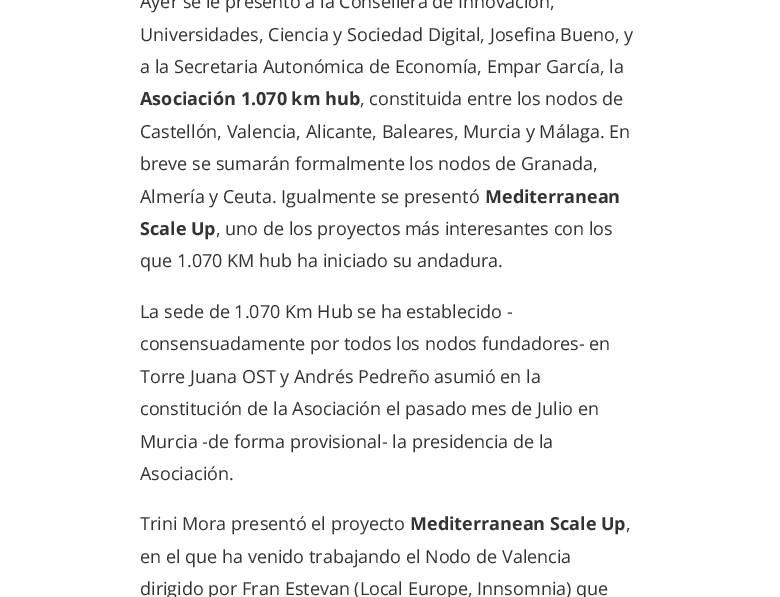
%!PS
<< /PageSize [780 597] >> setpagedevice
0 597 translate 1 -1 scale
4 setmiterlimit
1 setgray
0 0 780 597 rectfill
/OpenSans-Regular [18 0 0 -18 0 0] selectfont
0.2 setgray
140 8 moveto (Ayer se le presentó a la Consellera de Innovación,) show
140 41 moveto (Universidades, Ciencia y Sociedad Digital, Josefina Bueno, y) show
140 73 moveto (a la Secretaria Autonómica de Economía, Empar García, la) show
/OpenSans-Bold [18 0 0 -18 0 0] selectfont
140 105 moveto (Asociación 1.070 km hub) show
/OpenSans-Regular [18 0 0 -18 0 0] selectfont
360 105 moveto (, constituida entre los nodos de) show
140 138 moveto (Castellón, Valencia, Alicante, Baleares, Murcia y Málaga. En) show
140 170 moveto (breve se sumarán formalmente los nodos de Granada,) show
140 203 moveto (Almería y Ceuta. Igualmente se presentó) show
/OpenSans-Bold [18 0 0 -18 0 0] selectfont
485 203 moveto (Mediterranean) show
140 235 moveto (Scale Up) show
/OpenSans-Regular [18 0 0 -18 0 0] selectfont
216 235 moveto (, uno de los proyectos más interesantes con los) show
140 267 moveto (que 1.070 KM hub ha iniciado su andadura.) show
140 318 moveto (La sede de 1.070 Km Hub se ha establecido -) show
140 350 moveto (consensuadamente por todos los nodos fundadores- en) show
140 383 moveto (Torre Juana OST y Andrés Pedreño asumió en la) show
140 415 moveto (constitución de la Asociación el pasado mes de Julio en) show
140 448 moveto (Murcia -de forma provisional- la presidencia de la) show
140 480 moveto (Asociación.) show
140 530 moveto (Trini Mora presentó el proyecto) show
/OpenSans-Bold [18 0 0 -18 0 0] selectfont
410 530 moveto (Mediterranean Scale Up) show
/OpenSans-Regular [18 0 0 -18 0 0] selectfont
626 530 moveto (,) show
140 563 moveto (en el que ha venido trabajando el Nodo de Valencia) show
140 595 moveto (dirigido por Fran Estevan \(Local Europe, Innsomnia\) que) show
showpage
